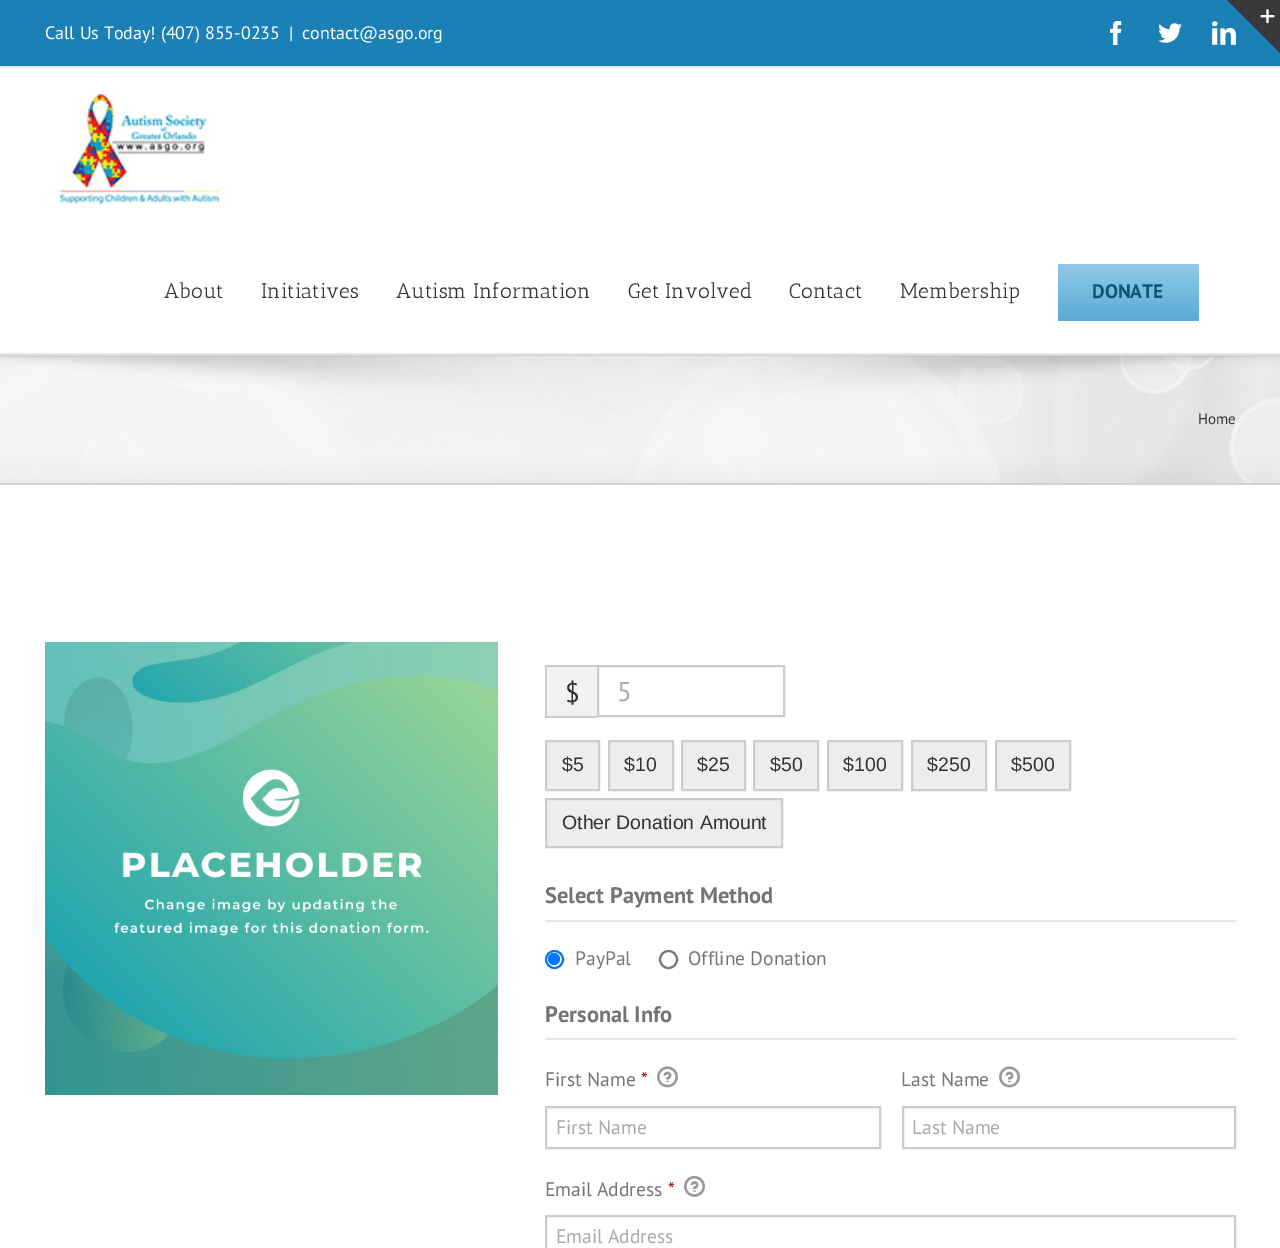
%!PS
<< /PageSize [1280 1248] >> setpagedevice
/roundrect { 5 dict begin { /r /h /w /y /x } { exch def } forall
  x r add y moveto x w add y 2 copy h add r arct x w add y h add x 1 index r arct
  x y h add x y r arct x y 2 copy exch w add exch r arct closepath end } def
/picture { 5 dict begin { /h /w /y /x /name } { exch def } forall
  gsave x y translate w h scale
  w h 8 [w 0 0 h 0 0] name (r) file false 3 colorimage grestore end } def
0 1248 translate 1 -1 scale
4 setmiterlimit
1 setgray
0 0 1280 1248 rectfill
0.102 0.502 0.714 setrgbcolor
0 0 1280 66 rectfill
0.898 setgray
0 66 1280 2 rectfill
/PTSans-Regular [18 0 0 -18 0 0] selectfont
1 setgray
45 39 moveto (Call Us Today! \(407\) 855-0235) show
289 39 moveto (|) show
302 39 moveto (contact@asgo.org) show
(img1.rgb) 1110 21 12 24 picture
(img2.rgb) 1158 23 24 20 picture
(img3.rgb) 1212 21 24 24 picture
0.898 setgray
0 353 1280 2 rectfill
(img4.rgb) 59 93 161 112 picture
/AnticSlab-Regular [21 0 0 -21 0 0] selectfont
0.2 setgray
164 298 moveto (About) show
261 298 moveto (Initiatives) show
396 298 moveto (Autism Information) show
628 298 moveto (Get Involved) show
789 298 moveto (Contact) show
900 298 moveto (Membership) show
gsave 1058 264 141 57 3 roundrect clip newpath
<< /ShadingType 2 /ColorSpace /DeviceRGB /Coords [1128 264 1128 321] /Extend [true true] /Function << /FunctionType 2 /Domain [0 1] /C0 [0.565 0.788 0.91] /C1 [0.353 0.671 0.839] /N 1 >> >> shfill grestore
/PTSans-Bold [19.5 0 0 -19.5 0 0] selectfont
0.063 0.325 0.471 setrgbcolor
1092 298 moveto (DONATE) show
0.212 0.22 0.224 setrgbcolor
newpath 1227 0 moveto 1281 0 lineto 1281 54 lineto closepath fill
(img5.rgb) 1260 9 15 15 picture
0.965 setgray
0 356 1280 127 rectfill
(img6.rgb) 0 356 1280 127 picture
0.824 0.827 0.831 setrgbcolor
0 355 1280 1 rectfill
0 483 1280 2 rectfill
/PTSans-Regular [15 0 0 -15 0 0] selectfont
0.2 setgray
1198 424 moveto (Home) show
(img7.rgb) 45 642 453 453 picture
0.949 setgray
547 667 50 49 rectfill
0.8 setgray
545 665 52 2 rectfill
545 716 52 2 rectfill
545 665 2 52 rectfill
/PTSans-Regular [27 0 0 -27 0 0] selectfont
0.2 setgray
565 702 moveto ($) show
0.8 setgray
2 setlinewidth
598 666 186 50 rectstroke
0.667 0.663 0.663 setrgbcolor
617 701 moveto (5) show
0.929 setgray
newpath 546 741 moveto 599 741 lineto 599 790 lineto 546 790 lineto closepath gsave fill grestore
0.8 setgray
stroke
/LiberationSans-Regular [19.5 0 0 -19.5 0 0] selectfont
0.2 setgray
562 771 moveto ($5) show
0.929 setgray
newpath 609 741 moveto 673 741 lineto 673 790 lineto 609 790 lineto closepath gsave fill grestore
0.8 setgray
stroke
0.2 setgray
624 771 moveto ($10) show
0.929 setgray
newpath 682 741 moveto 745 741 lineto 745 790 lineto 682 790 lineto closepath gsave fill grestore
0.8 setgray
stroke
0.2 setgray
697 771 moveto ($25) show
0.929 setgray
newpath 754 741 moveto 818 741 lineto 818 790 lineto 754 790 lineto closepath gsave fill grestore
0.8 setgray
stroke
0.2 setgray
770 771 moveto ($50) show
0.929 setgray
newpath 828 741 moveto 902 741 lineto 902 790 lineto 828 790 lineto closepath gsave fill grestore
0.8 setgray
stroke
0.2 setgray
843 771 moveto ($100) show
0.929 setgray
newpath 912 741 moveto 986 741 lineto 986 790 lineto 912 790 lineto closepath gsave fill grestore
0.8 setgray
stroke
0.2 setgray
927 771 moveto ($250) show
0.929 setgray
newpath 996 741 moveto 1070 741 lineto 1070 790 lineto 996 790 lineto closepath gsave fill grestore
0.8 setgray
stroke
0.2 setgray
1011 771 moveto ($500) show
0.929 setgray
newpath 546 799 moveto 782 799 lineto 782 847 lineto 546 847 lineto closepath gsave fill grestore
0.8 setgray
stroke
0.2 setgray
562 829 moveto (Other Donation Amount) show
0.902 setgray
545 920 691 2 rectfill
/PTSans-Bold [22.5 0 0 -22.5 0 0] selectfont
0.455 setgray
545 903 moveto (Select Payment Method) show
0 0.459 1 setrgbcolor
newpath 554.5 959.5 8.5 0 360 arc closepath stroke
newpath 554 959 6 0 360 arc closepath fill
/PTSans-Regular [19.5 0 0 -19.5 0 0] selectfont
0.455 setgray
575 965 moveto (PayPal) show
0.463 setgray
newpath 668.5 959.5 8.5 0 360 arc closepath stroke
0.455 setgray
688 965 moveto (Offline Donation) show
0.902 setgray
545 1038 691 2 rectfill
/PTSans-Bold [22.5 0 0 -22.5 0 0] selectfont
0.455 setgray
545 1022 moveto (Personal Info) show
/PTSans-Regular [19.5 0 0 -19.5 0 0] selectfont
545 1086 moveto (First Name) show
0.667 0 0 setrgbcolor
641 1086 moveto (*) show
(img8.rgb) 657 1066 21 22 picture
0.8 setgray
546 1107 334 41 rectstroke
0.667 0.663 0.663 setrgbcolor
556 1134 moveto (First Name) show
0.455 setgray
901 1086 moveto (Last Name) show
(img8.rgb) 999 1066 21 22 picture
0.8 setgray
903 1107 332 41 rectstroke
0.667 0.663 0.663 setrgbcolor
912 1134 moveto (Last Name) show
0.455 setgray
545 1196 moveto (Email Address) show
0.667 0 0 setrgbcolor
668 1196 moveto (*) show
(img9.rgb) 684 1175 21 22 picture
0.8 setgray
546 1216 689 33 rectstroke
0.667 0.663 0.663 setrgbcolor
556 1243 moveto (Email Address) show
showpage
